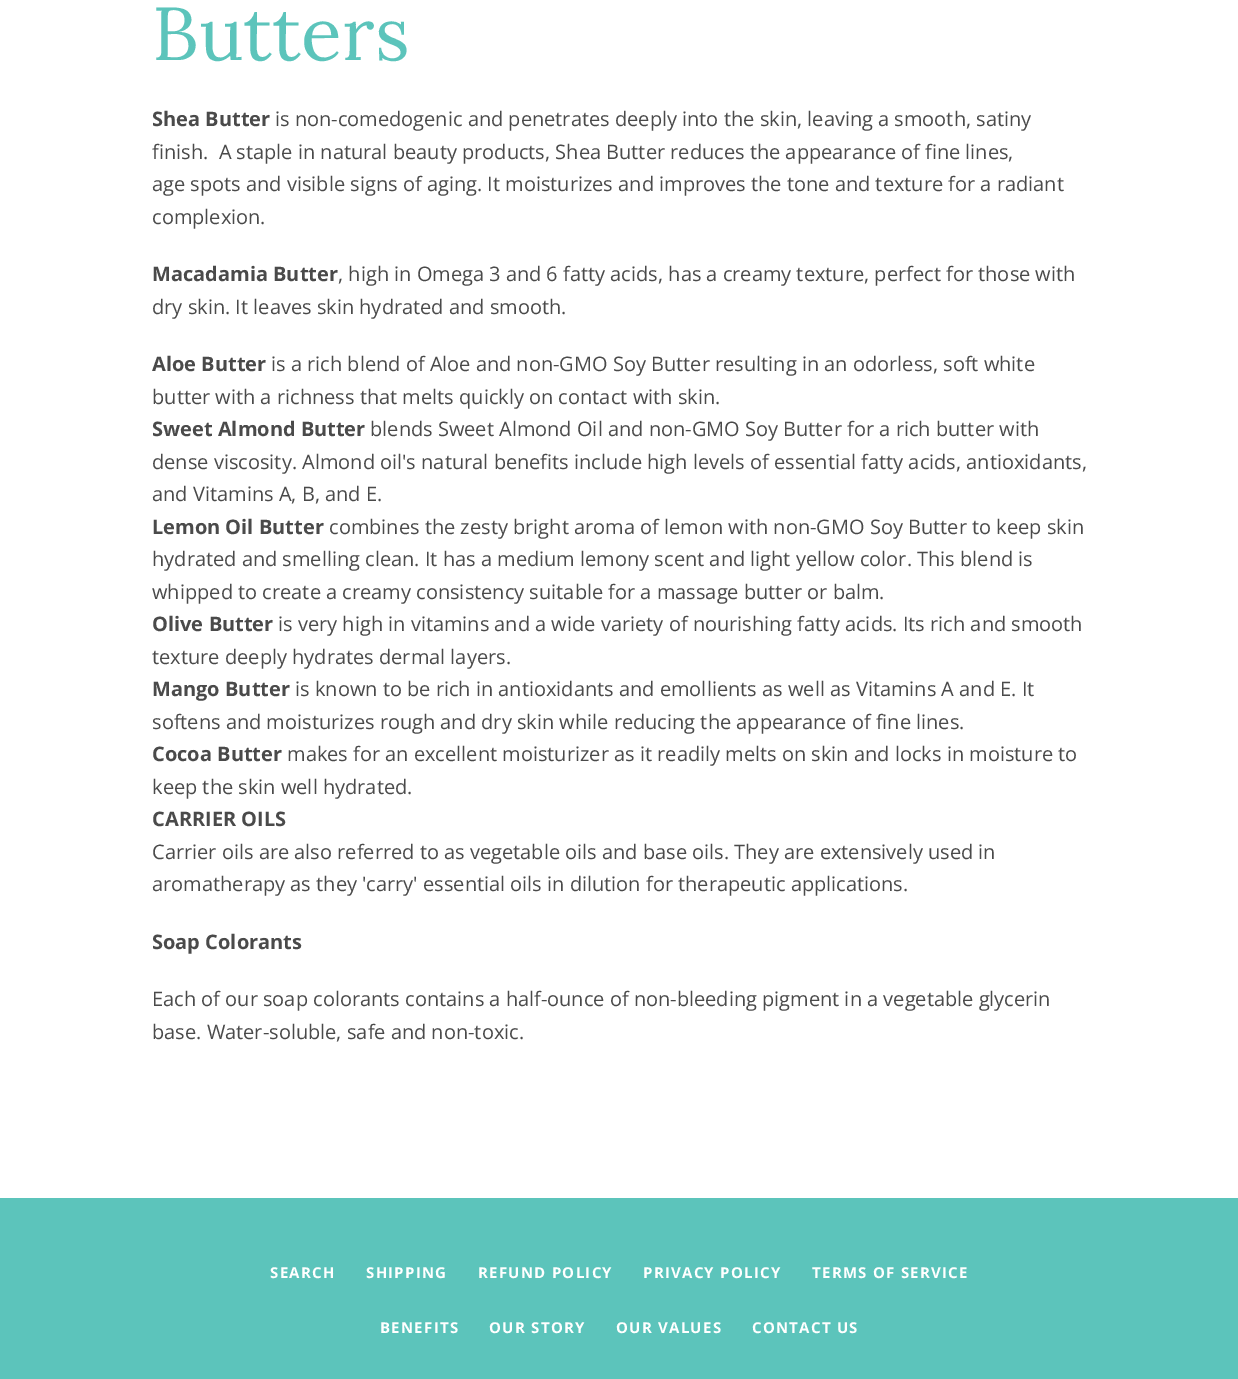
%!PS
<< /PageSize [1238 1379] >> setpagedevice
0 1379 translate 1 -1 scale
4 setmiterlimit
1 setgray
0 0 1238 1379 rectfill
/Lora-Regular [75 0 0 -75 0 0] selectfont
0.361 0.769 0.733 setrgbcolor
152 60 moveto (Butters) show
/OpenSans-Bold [20 0 0 -20 0 0] selectfont
0.29 setgray
152 126 moveto (Shea Butter) show
/OpenSans-Regular [20 0 0 -20 0 0] selectfont
275 126 moveto (is non-comedogenic and penetrates deeply into the skin, leaving a smooth, satiny) show
152 159 moveto (finish.  A staple in natural beauty products, Shea Butter reduces the appearance of fine lines,) show
152 191 moveto (age spots and visible signs of aging. It moisturizes and improves the tone and texture for a radiant) show
152 224 moveto (complexion.) show
/OpenSans-Bold [20 0 0 -20 0 0] selectfont
152 281 moveto (Macadamia Butter) show
/OpenSans-Regular [20 0 0 -20 0 0] selectfont
338 281 moveto (, high in Omega 3 and 6 fatty acids, has a creamy texture, perfect for those with) show
152 314 moveto (dry skin. It leaves skin hydrated and smooth.) show
/OpenSans-Bold [20 0 0 -20 0 0] selectfont
152 371 moveto (Aloe Butter) show
/OpenSans-Regular [20 0 0 -20 0 0] selectfont
271 371 moveto (is a rich blend of Aloe and non-GMO Soy Butter resulting in an odorless, soft white) show
152 404 moveto (butter with a richness that melts quickly on contact with skin.) show
/OpenSans-Bold [20 0 0 -20 0 0] selectfont
152 436 moveto (Sweet Almond Butter) show
/OpenSans-Regular [20 0 0 -20 0 0] selectfont
370 436 moveto (blends Sweet Almond Oil and non-GMO Soy Butter for a rich butter with) show
152 469 moveto (dense viscosity. Almond oil's natural benefits include high levels of essential fatty acids, antioxidants,) show
152 501 moveto (and Vitamins A, B, and E.) show
/OpenSans-Bold [20 0 0 -20 0 0] selectfont
152 534 moveto (Lemon Oil Butter) show
/OpenSans-Regular [20 0 0 -20 0 0] selectfont
329 534 moveto (combines the zesty bright aroma of lemon with non-GMO Soy Butter to keep skin) show
152 566 moveto (hydrated and smelling clean. It has a medium lemony scent and light yellow color. This blend is) show
152 599 moveto (whipped to create a creamy consistency suitable for a massage butter or balm.) show
/OpenSans-Bold [20 0 0 -20 0 0] selectfont
152 631 moveto (Olive Butter) show
/OpenSans-Regular [20 0 0 -20 0 0] selectfont
278 631 moveto (is very high in vitamins and a wide variety of nourishing fatty acids. Its rich and smooth) show
152 664 moveto (texture deeply hydrates dermal layers.) show
/OpenSans-Bold [20 0 0 -20 0 0] selectfont
152 696 moveto (Mango Butter) show
/OpenSans-Regular [20 0 0 -20 0 0] selectfont
295 696 moveto (is known to be rich in antioxidants and emollients as well as Vitamins A and E. It) show
152 729 moveto (softens and moisturizes rough and dry skin while reducing the appearance of fine lines.) show
/OpenSans-Bold [20 0 0 -20 0 0] selectfont
152 761 moveto (Cocoa Butter) show
/OpenSans-Regular [20 0 0 -20 0 0] selectfont
287 761 moveto (makes for an excellent moisturizer as it readily melts on skin and locks in moisture to) show
152 794 moveto (keep the skin well hydrated.) show
/OpenSans-Bold [20 0 0 -20 0 0] selectfont
152 826 moveto (CARRIER OILS) show
/OpenSans-Regular [20 0 0 -20 0 0] selectfont
152 859 moveto (Carrier oils are also referred to as vegetable oils and base oils. They are extensively used in) show
152 891 moveto (aromatherapy as they 'carry' essential oils in dilution for therapeutic applications.) show
/OpenSans-Bold [20 0 0 -20 0 0] selectfont
152 949 moveto (Soap Colorants) show
/OpenSans-Regular [20 0 0 -20 0 0] selectfont
152 1006 moveto (Each of our soap colorants contains a half-ounce of non-bleeding pigment in a vegetable glycerin) show
152 1039 moveto (base. Water-soluble, safe and non-toxic.) show
0.361 0.769 0.733 setrgbcolor
0 1198 1238 181 rectfill
/OpenSans-Bold [15 0 0 -15 0 0] selectfont
1 setgray
270 1278 moveto 1.25 0 (SEARCH) ashow
366 1278 moveto 1.25 0 (SHIPPING) ashow
478 1278 moveto 1.25 0 (REFUND POLICY) ashow
643 1278 moveto 1.25 0 (PRIVACY POLICY) ashow
812 1278 moveto 1.25 0 (TERMS OF SERVICE) ashow
380 1333 moveto 1.25 0 (BENEFITS) ashow
489 1333 moveto 1.25 0 (OUR STORY) ashow
616 1333 moveto 1.25 0 (OUR VALUES) ashow
752 1333 moveto 1.25 0 (CONTACT US) ashow
showpage
